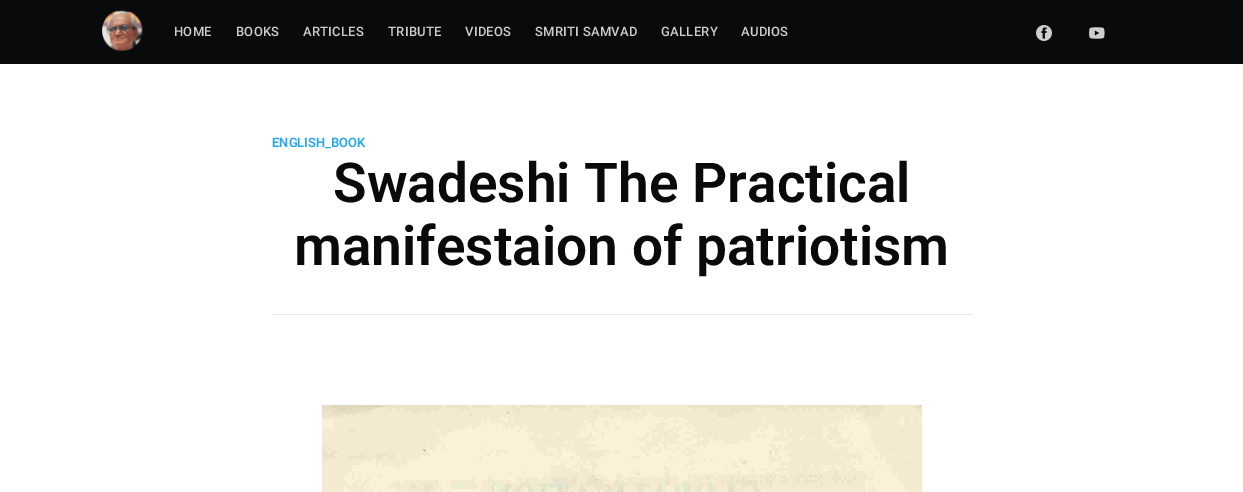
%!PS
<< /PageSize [1243 492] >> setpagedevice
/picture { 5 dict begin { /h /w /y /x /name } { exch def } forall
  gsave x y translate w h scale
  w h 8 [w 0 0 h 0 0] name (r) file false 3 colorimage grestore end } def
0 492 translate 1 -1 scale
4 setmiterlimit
1 setgray
0 0 1243 492 rectfill
0.035 0.039 0.043 setrgbcolor
0 0 1243 64 rectfill
(img1.rgb) 102 10 41 41 picture
/Roboto-Medium [13 0 0 -13 0 0] selectfont
0.808 setgray
174 36 moveto 0.25 0 (HOME) ashow
236 36 moveto 0.25 0 (BOOKS) ashow
303 36 moveto 0.25 0 (ARTICLES) ashow
388 36 moveto 0.25 0 (TRIBUTE) ashow
465 36 moveto 0.25 0 (VIDEOS) ashow
535 36 moveto 0.25 0 (SMRITI SAMVAD) ashow
661 36 moveto 0.25 0 (GALLERY) ashow
741 36 moveto 0.25 0 (AUDIOS) ashow
(img2.rgb) 1036 25 16 16 picture
(img3.rgb) 1089 27 16 12 picture
/Roboto-SemiBold [13 0 0 -13 0 0] selectfont
0.149 0.659 0.929 setrgbcolor
272 147 moveto (ENGLISH_BOOK) show
/Roboto-SemiBold [55 0 0 -55 0 0] selectfont
0.035 0.039 0.043 setrgbcolor
333 202 moveto (Swadeshi The Practical) show
294 265 moveto (manifestaion of patriotism) show
0.89 0.914 0.929 setrgbcolor
272 314 700 1 rectfill
(img4.rgb) 322 405 600 87 picture
showpage
